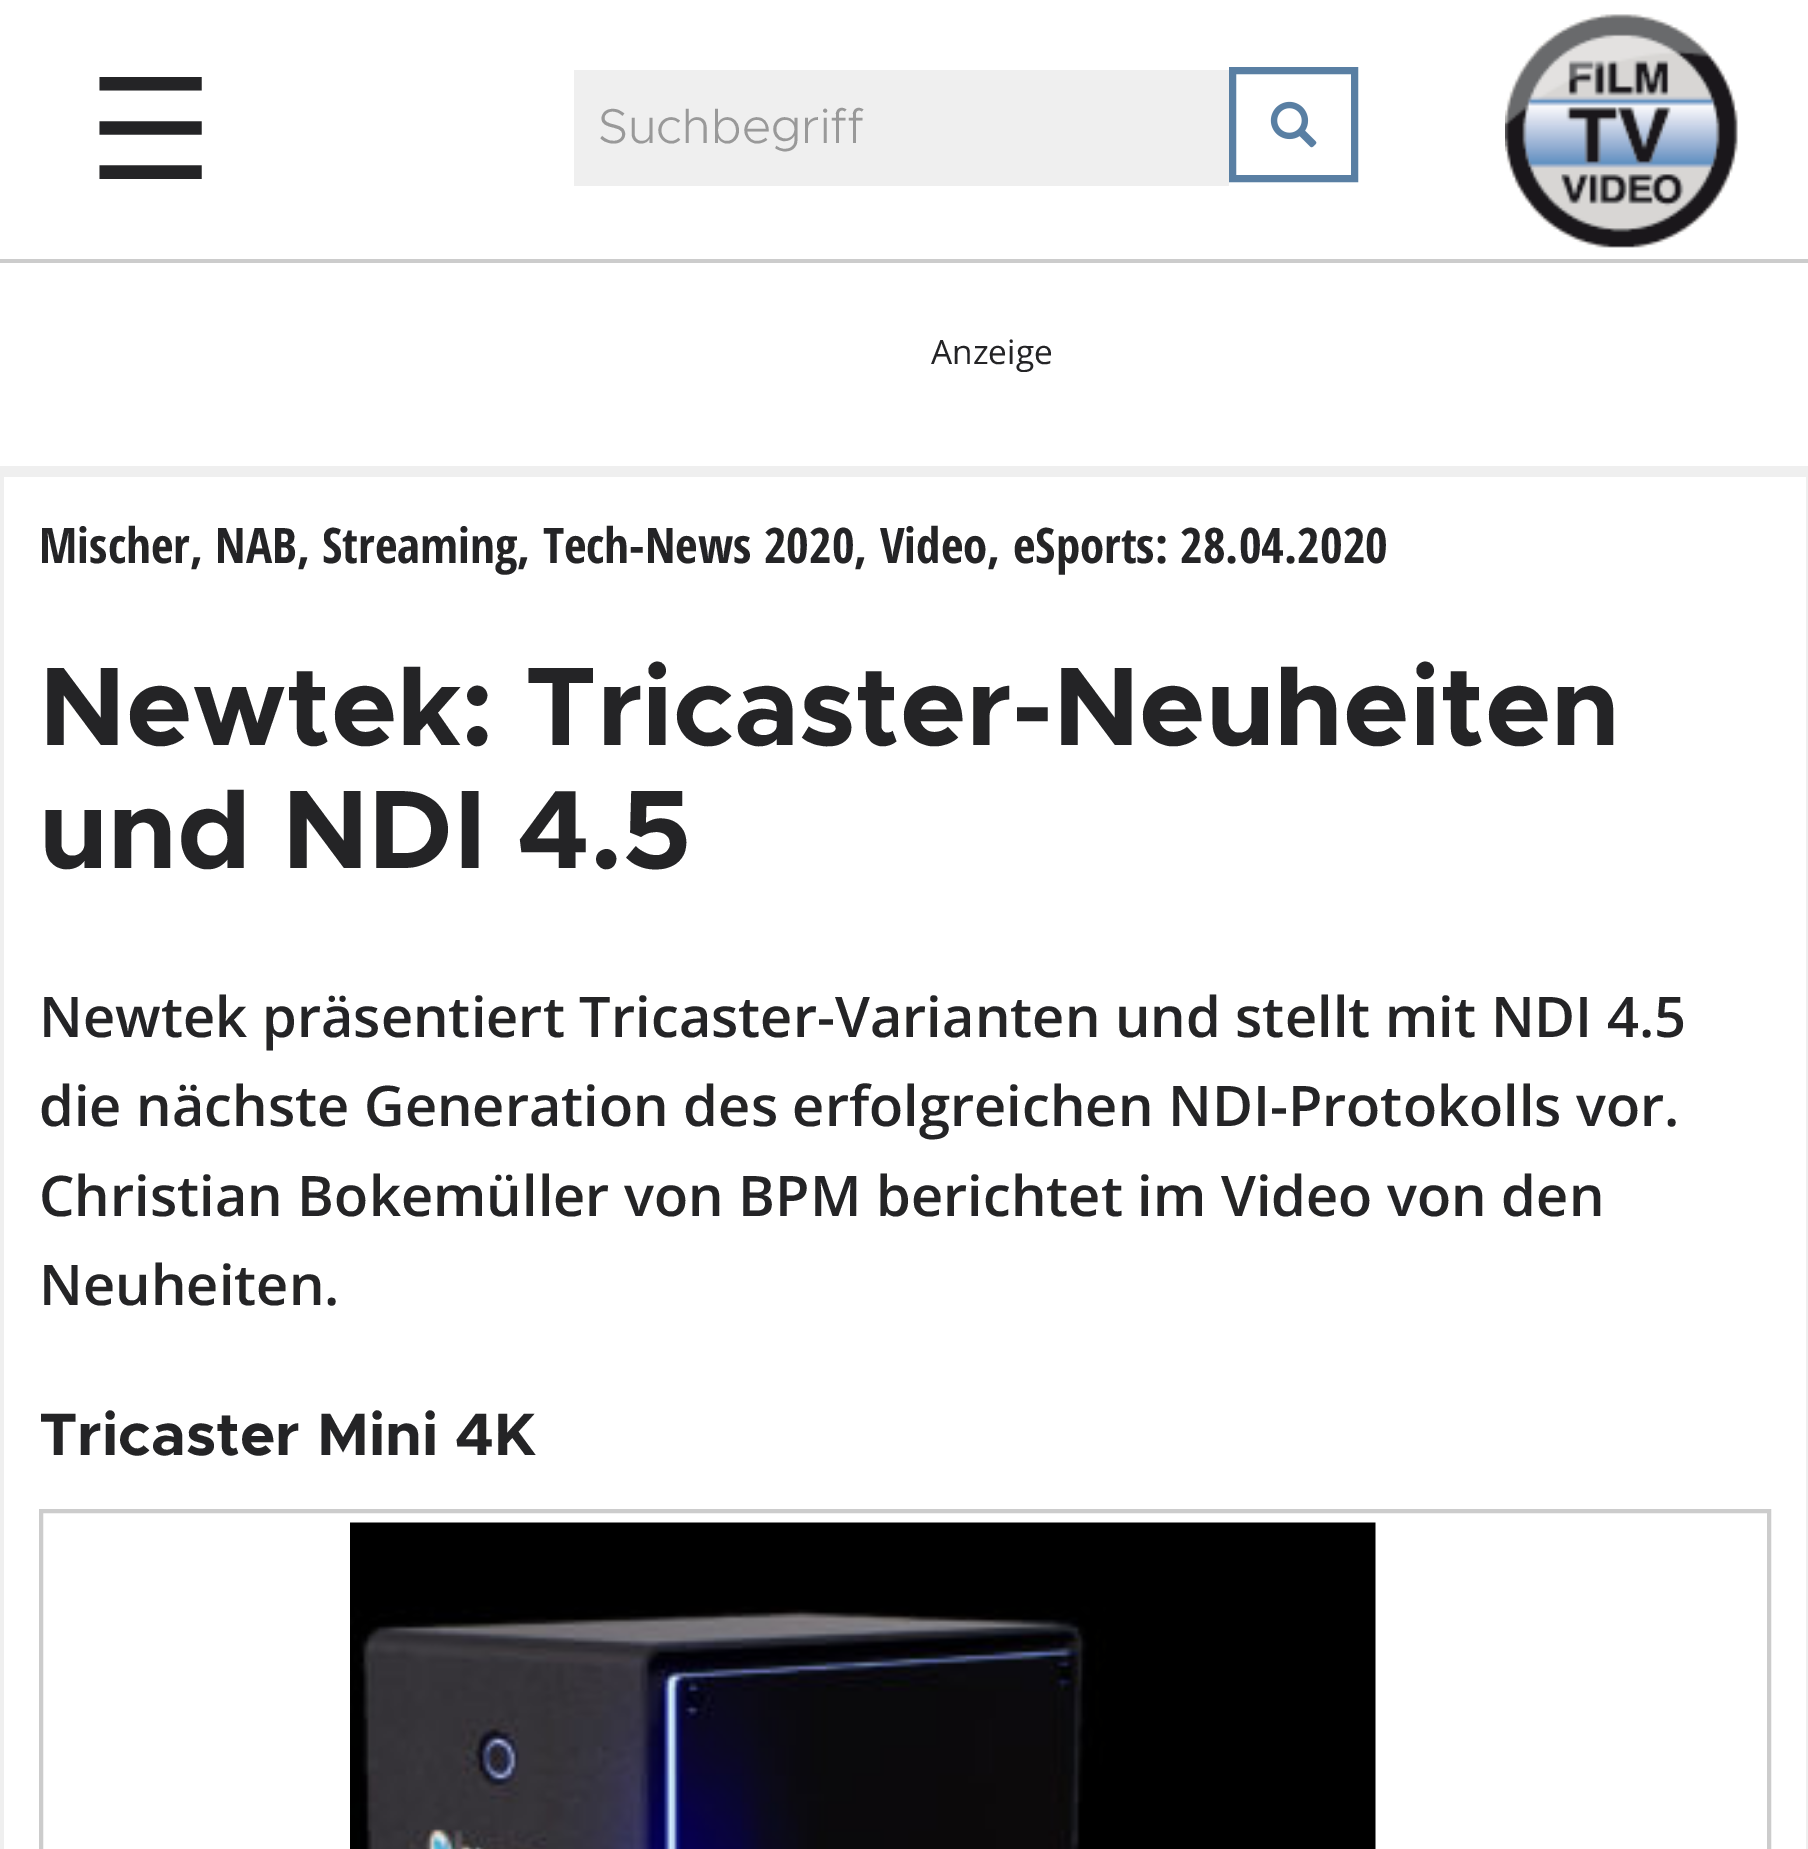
%!PS
<< /PageSize [1808 1849] >> setpagedevice
/picture { 5 dict begin { /h /w /y /x /name } { exch def } forall
  gsave x y translate w h scale
  w h 8 [w 0 0 h 0 0] name (r) file false 3 colorimage grestore end } def
0 1849 translate 1 -1 scale
4 setmiterlimit
1 setgray
0 0 1808 1849 rectfill
0.8 setgray
0 259 1808 4 rectfill
/DejaVuSans-Regular [140 0 0 -140 0 0] selectfont
0.141 0.141 0.149 setrgbcolor
88 179 moveto (☰) show
0.937 setgray
574 70 655 116 rectfill
/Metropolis-Light [49 0 0 -49 0 0] selectfont
0.6 setgray
598 143 moveto (Suchbegriff) show
0.349 0.498 0.639 setrgbcolor
7 setlinewidth
1232.5 70.5 122 108 rectstroke
(img1.rgb) 1270 101 47 47 picture
(img2.rgb) 1505 14 233 234 picture
/OpenSans-Regular [33.5 0 0 -33.5 0 0] selectfont
0.141 0.141 0.149 setrgbcolor
931 364 moveto (Anzeige) show
0.937 setgray
4 466 1802 11 rectfill
1806 466 2 1383 rectfill
0 466 4 1383 rectfill
/OpenSansCondensed-Bold [49 0 0 -49 0 0] selectfont
0.141 0.141 0.149 setrgbcolor
39 563 moveto (Mischer, NAB, Streaming, Tech-News 2020, Video, eSports: 28.04.2020) show
/Metropolis-Bold [112 0 0 -112 0 0] selectfont
39 745 moveto (Newtek: Tricaster-Neuheiten) show
39 868 moveto (und NDI 4.5) show
/OpenSans-SemiBold [56 0 0 -56 0 0] selectfont
39 1037 moveto (Newtek präsentiert Tricaster-Varianten und stellt mit NDI 4.5) show
39 1126 moveto (die nächste Generation des erfolgreichen NDI-Protokolls vor.) show
39 1216 moveto (Christian Bokemüller von BPM berichtet im Video von den) show
39 1305 moveto (Neuheiten.) show
/Metropolis-Bold [60 0 0 -60 0 0] selectfont
39 1455 moveto (Tricaster Mini 4K) show
0.8 setgray
4 setlinewidth
41 1511 1728 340 rectstroke
(img3.rgb) 350 1522 1026 327 picture
showpage
